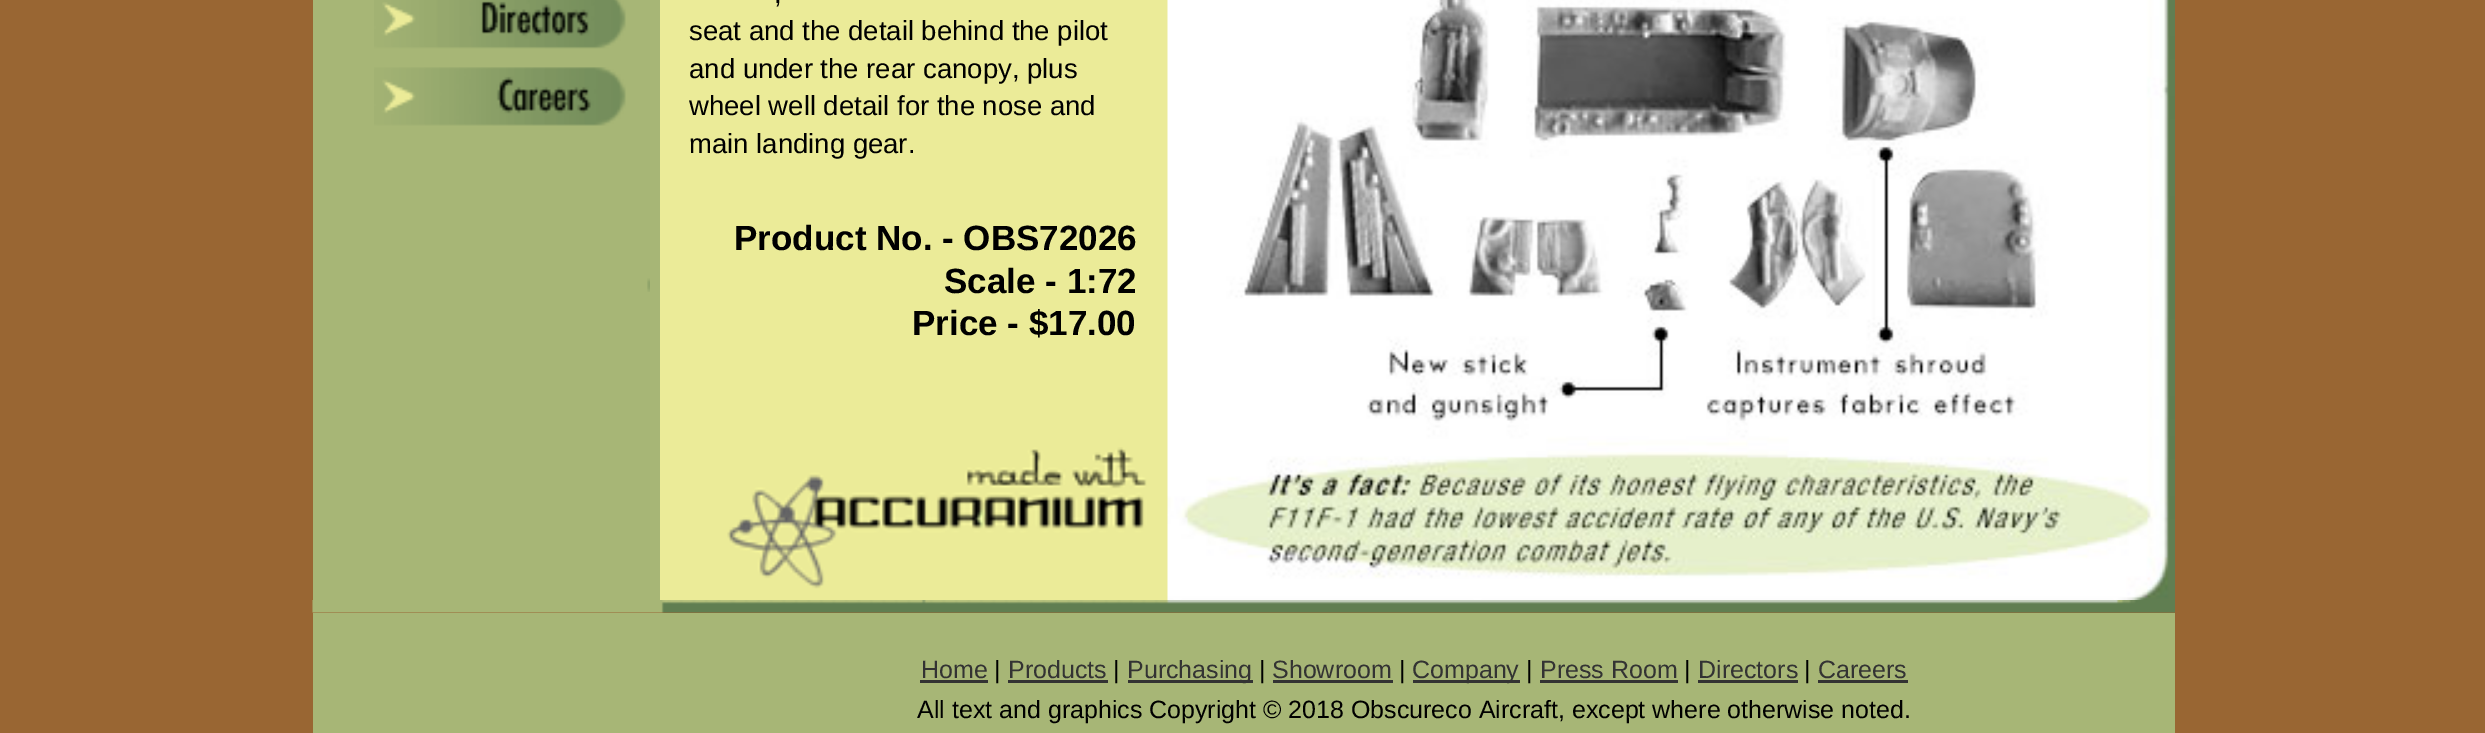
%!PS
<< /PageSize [2485 733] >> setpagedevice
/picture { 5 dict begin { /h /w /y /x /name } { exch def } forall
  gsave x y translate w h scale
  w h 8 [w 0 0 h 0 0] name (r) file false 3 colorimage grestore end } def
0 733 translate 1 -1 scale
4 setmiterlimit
0.6 0.4 0.2 setrgbcolor
0 0 2485 733 rectfill
0.655 0.714 0.463 setrgbcolor
313 0 347 600 rectfill
(img1.rgb) 374 0 252 49 picture
(img2.rgb) 374 67 252 59 picture
(img3.rgb) 647 278 3 14 picture
0.922 0.922 0.596 setrgbcolor
660 0 508 425 rectfill
/LiberationSans-Regular [27.5 0 0 -27.5 0 0] selectfont
0 setgray
774 3 moveto (,) show
689 40 moveto (seat and the detail behind the pilot) show
689 78 moveto (and under the rear canopy, plus) show
689 115 moveto (wheel well detail for the nose and) show
689 153 moveto (main landing gear.) show
/LiberationSans-Bold [35 0 0 -35 0 0] selectfont
734 250 moveto (Product No. - OBS72026) show
944 293 moveto (Scale - 1:72) show
912 335 moveto (Price - $17.00) show
0.922 0.922 0.596 setrgbcolor
660 425 508 175 rectfill
(img4.rgb) 1167 0 1008 600 picture
(img5.rgb) 727 447 420 142 picture
(img6.rgb) 312 600 1863 13 picture
0.655 0.714 0.463 setrgbcolor
313 613 1862 120 rectfill
/LiberationSans-Regular [25 0 0 -25 0 0] selectfont
0.2 setgray
921 678 moveto (Home) show
920 680 68 3 rectfill
0 setgray
994 678 moveto (|) show
0.2 setgray
1008 678 moveto (Products) show
1008 680 100 3 rectfill
0 setgray
1113 678 moveto (|) show
0.2 setgray
1128 680 125 3 rectfill
1127 678 moveto (Purchasing) show
0 setgray
1259 678 moveto (|) show
0.2 setgray
1272 678 moveto (Showroom) show
1273 680 120 3 rectfill
0 setgray
1399 678 moveto (|) show
0.2 setgray
1413 680 107 3 rectfill
1412 678 moveto (Company) show
0 setgray
1526 678 moveto (|) show
0.2 setgray
1540 678 moveto (Press Room) show
1540 680 138 3 rectfill
0 setgray
1684 678 moveto (|) show
0.2 setgray
1698 678 moveto (Directors) show
1698 680 100 3 rectfill
0 setgray
1804 678 moveto (|) show
0.2 setgray
1818 678 moveto (Careers) show
1818 680 90 3 rectfill
0 setgray
917 718 moveto (All text and graphics Copyright © 2018 Obscureco Aircraft, except where otherwise noted.) show
showpage
